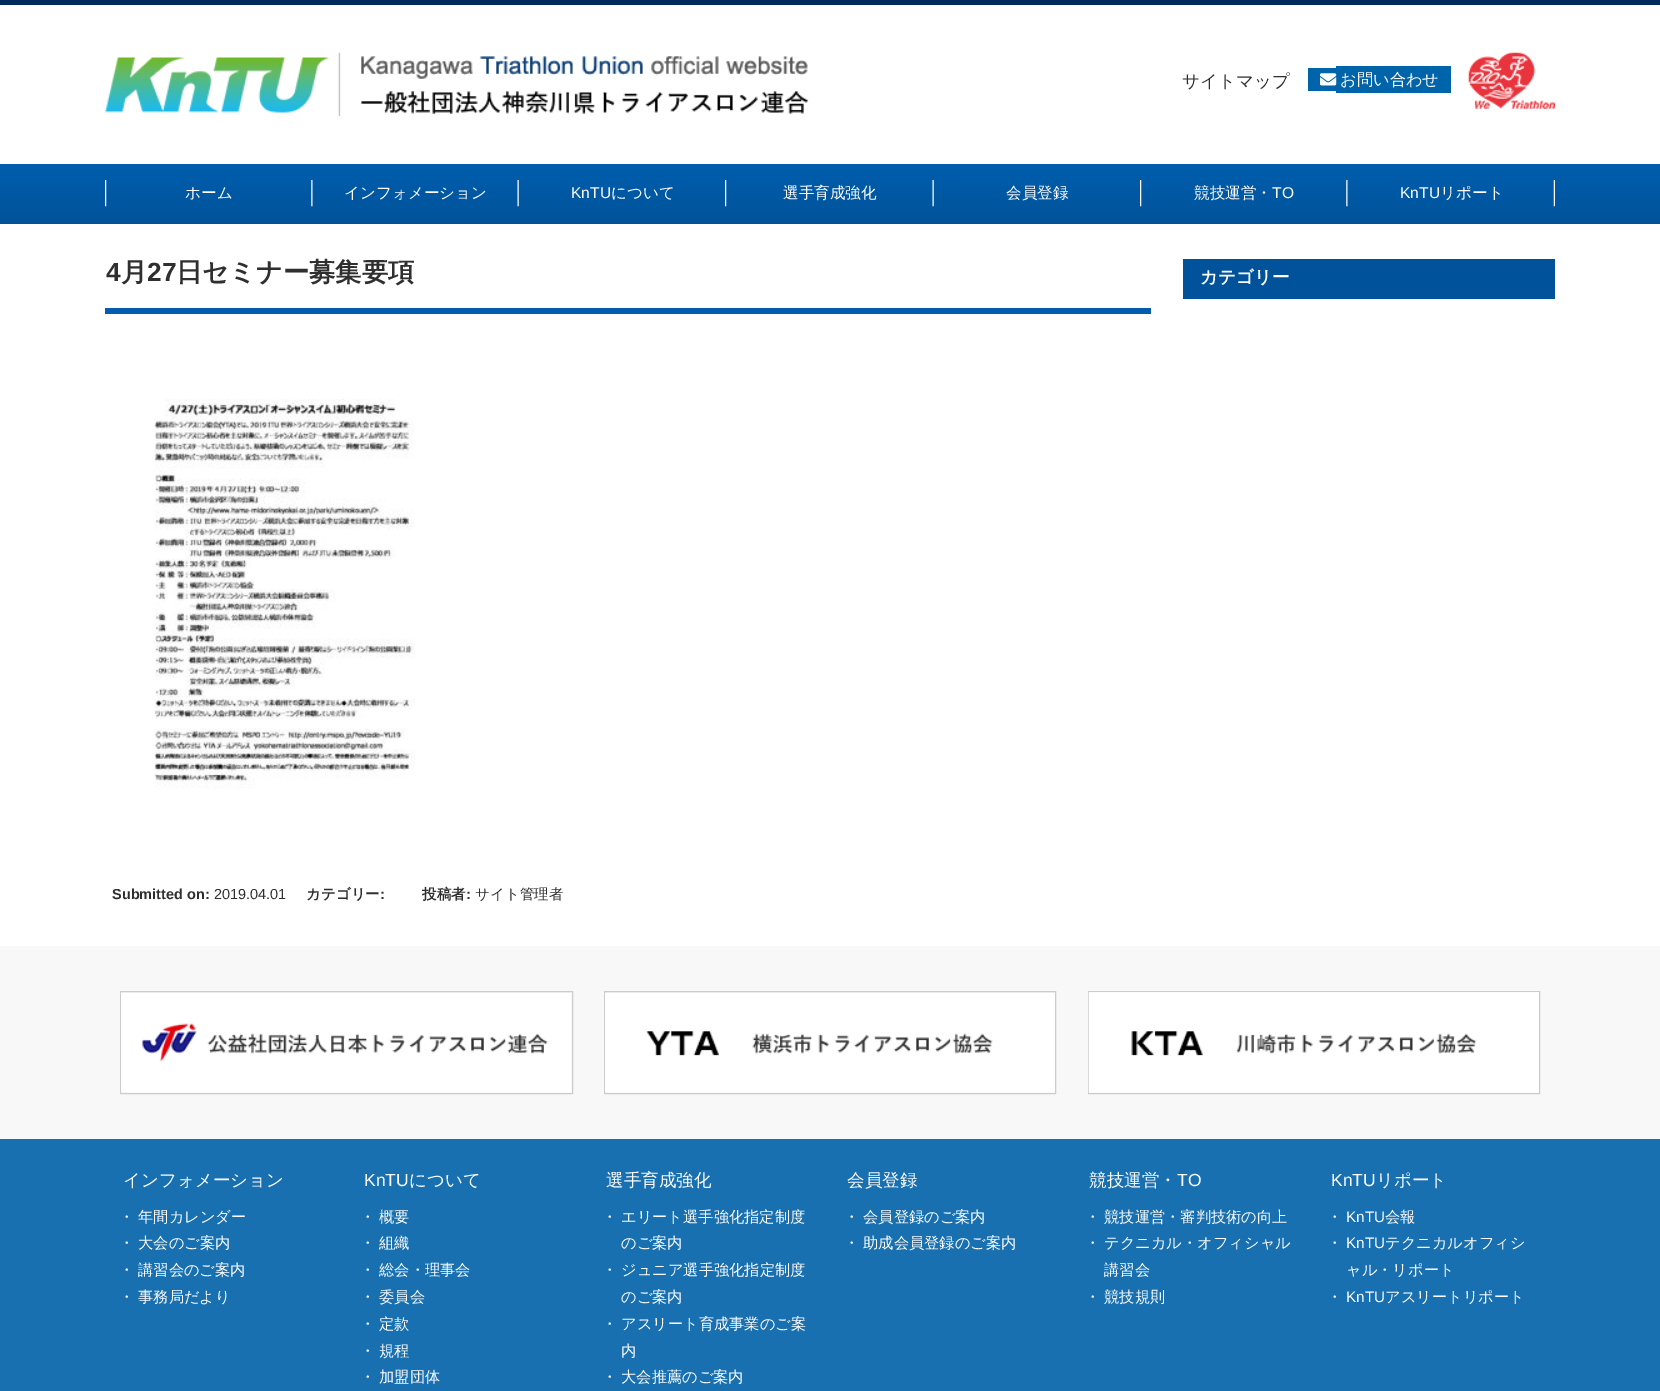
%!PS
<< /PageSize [1660 1391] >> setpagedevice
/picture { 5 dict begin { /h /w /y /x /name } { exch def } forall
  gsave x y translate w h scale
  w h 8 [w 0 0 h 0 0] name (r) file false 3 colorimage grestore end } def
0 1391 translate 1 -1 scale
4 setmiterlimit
1 setgray
0 0 1660 1391 rectfill
0 0.169 0.365 setrgbcolor
0 0 1660 5 rectfill
(img1.rgb) 105 52 704 64 picture
/WenQuanYiZenHei-Medium [17.5 0 0 -17.5 0 0] selectfont
0.184 setgray
1182 87 moveto (サイトマップ) show
0 0.392 0.667 setrgbcolor
1308 68 28 23 rectfill
1336 66 115 27 rectfill
(img2.rgb) 1320 73 17 13 picture
/WenQuanYiZenHei-Medium [16.25 0 0 -16.25 0 0] selectfont
1 setgray
1340 85 moveto (お問い合わせ) show
(img3.rgb) 1468 52 87 57 picture
gsave newpath 0 164 moveto 1660 164 lineto 1660 224 lineto 0 224 lineto closepath clip newpath
<< /ShadingType 2 /ColorSpace /DeviceRGB /Coords [830 164 830 224] /Extend [true true] /Function << /FunctionType 2 /Domain [0 1] /C0 [0 0.369 0.682] /C1 [0 0.325 0.6] /N 1 >> >> shfill grestore
(img4.rgb) 105 180 2 27 picture
(img5.rgb) 311 180 2 27 picture
/WenQuanYiZenHei-Medium [15.6 0 0 -15.6 0 0] selectfont
185 198 moveto (ホーム) show
(img6.rgb) 517 180 2 27 picture
344 198 moveto (インフォメーション) show
(img4.rgb) 725 180 2 27 picture
/LiberationSans-Regular [15.6 0 0 -15.6 0 0] selectfont
571 198 moveto (KnTU) show
/WenQuanYiZenHei-Medium [15.6 0 0 -15.6 0 0] selectfont
611 198 moveto (について) show
(img6.rgb) 932 180 2 27 picture
783 198 moveto (選手育成強化) show
(img4.rgb) 1140 180 2 27 picture
1006 198 moveto (会員登録) show
(img5.rgb) 1346 180 2 27 picture
1194 198 moveto (競技運営・) show
/LiberationSans-Regular [15.6 0 0 -15.6 0 0] selectfont
1272 198 moveto (TO) show
(img7.rgb) 1553 180 2 27 picture
1400 198 moveto (KnTU) show
/WenQuanYiZenHei-Medium [15.6 0 0 -15.6 0 0] selectfont
1440 198 moveto (リポート) show
0.012 0.361 0.675 setrgbcolor
105 308 1046 6 rectfill
/LiberationSans-Bold [26.25 0 0 -26.25 0 0] selectfont
0.184 setgray
106 281 moveto (4) show
/WenQuanYiZenHei-Bold [26.25 0 0 -26.25 0 0] selectfont
121 281 moveto (月) show
/LiberationSans-Bold [26.25 0 0 -26.25 0 0] selectfont
147 281 moveto (27) show
/WenQuanYiZenHei-Bold [26.25 0 0 -26.25 0 0] selectfont
176 281 moveto (日セミナー募集要項) show
(img8.rgb) 154 399 261 390 picture
/LiberationSans-Bold [14.5 0 0 -14.5 0 0] selectfont
112 899 moveto (Submitted on:) show
/LiberationSans-Regular [14.5 0 0 -14.5 0 0] selectfont
214 899 moveto (2019.04.01) show
/WenQuanYiZenHei-Bold [14.5 0 0 -14.5 0 0] selectfont
306 899 moveto (カテゴリー) show
/LiberationSans-Bold [14.5 0 0 -14.5 0 0] selectfont
380 899 moveto (:) show
/WenQuanYiZenHei-Bold [14.5 0 0 -14.5 0 0] selectfont
422 899 moveto (投稿者) show
/LiberationSans-Bold [14.5 0 0 -14.5 0 0] selectfont
466 899 moveto (:) show
/WenQuanYiZenHei-Medium [14.5 0 0 -14.5 0 0] selectfont
475 899 moveto (サイト管理者) show
0 0.325 0.604 setrgbcolor
1183 259 372 40 rectfill
/WenQuanYiZenHei-Bold [17.5 0 0 -17.5 0 0] selectfont
1 setgray
1200 283 moveto (カテゴリー) show
0.973 setgray
0 946 1660 193 rectfill
0.8 setgray
120.5 991.5 452 102 rectstroke
(img9.rgb) 121 993 450 99 picture
604.5 991.5 451 102 rectstroke
(img10.rgb) 605 993 450 99 picture
1088.5 991.5 451 102 rectstroke
(img11.rgb) 1088 992 451 101 picture
0.094 0.439 0.69 setrgbcolor
0 1139 1660 252 rectfill
/WenQuanYiZenHei-Medium [17.5 0 0 -17.5 0 0] selectfont
1 setgray
123 1186 moveto (インフォメーション) show
/WenQuanYiZenHei-Medium [15.25 0 0 -15.25 0 0] selectfont
119 1222 moveto (・) show
138 1222 moveto (年間カレンダー) show
119 1248 moveto (・) show
138 1248 moveto (大会のご案内) show
119 1275 moveto (・) show
138 1275 moveto (講習会のご案内) show
119 1302 moveto (・) show
138 1302 moveto (事務局だより) show
/LiberationSans-Regular [17.5 0 0 -17.5 0 0] selectfont
364 1186 moveto (KnTU) show
/WenQuanYiZenHei-Medium [17.5 0 0 -17.5 0 0] selectfont
409 1186 moveto (について) show
/WenQuanYiZenHei-Medium [15.25 0 0 -15.25 0 0] selectfont
360 1222 moveto (・) show
379 1222 moveto (概要) show
360 1248 moveto (・) show
379 1248 moveto (組織) show
360 1275 moveto (・) show
379 1275 moveto (総会・理事会) show
360 1302 moveto (・) show
379 1302 moveto (委員会) show
360 1329 moveto (・) show
379 1329 moveto (定款) show
360 1356 moveto (・) show
379 1356 moveto (規程) show
360 1382 moveto (・) show
379 1382 moveto (加盟団体) show
/WenQuanYiZenHei-Medium [17.5 0 0 -17.5 0 0] selectfont
606 1186 moveto (選手育成強化) show
/WenQuanYiZenHei-Medium [15.25 0 0 -15.25 0 0] selectfont
602 1222 moveto (・) show
621 1222 moveto (エリート選手強化指定制度) show
621 1248 moveto (のご案内) show
602 1275 moveto (・) show
621 1275 moveto (ジュニア選手強化指定制度) show
621 1302 moveto (のご案内) show
602 1329 moveto (・) show
621 1329 moveto (アスリート育成事業のご案) show
621 1356 moveto (内) show
602 1382 moveto (・) show
621 1382 moveto (大会推薦のご案内) show
/WenQuanYiZenHei-Medium [17.5 0 0 -17.5 0 0] selectfont
847 1186 moveto (会員登録) show
/WenQuanYiZenHei-Medium [15.25 0 0 -15.25 0 0] selectfont
844 1222 moveto (・) show
863 1222 moveto (会員登録のご案内) show
844 1248 moveto (・) show
863 1248 moveto (助成会員登録のご案内) show
/WenQuanYiZenHei-Medium [17.5 0 0 -17.5 0 0] selectfont
1089 1186 moveto (競技運営・) show
/LiberationSans-Regular [17.5 0 0 -17.5 0 0] selectfont
1177 1186 moveto (TO) show
/WenQuanYiZenHei-Medium [15.25 0 0 -15.25 0 0] selectfont
1085 1222 moveto (・) show
1104 1222 moveto (競技運営・審判技術の向上) show
1085 1248 moveto (・) show
1104 1248 moveto (テクニカル・オフィシャル) show
1104 1275 moveto (講習会) show
1085 1302 moveto (・) show
1104 1302 moveto (競技規則) show
/LiberationSans-Regular [17.5 0 0 -17.5 0 0] selectfont
1331 1186 moveto (KnTU) show
/WenQuanYiZenHei-Medium [17.5 0 0 -17.5 0 0] selectfont
1376 1186 moveto (リポート) show
/WenQuanYiZenHei-Medium [15.25 0 0 -15.25 0 0] selectfont
1327 1222 moveto (・) show
/LiberationSans-Regular [15.25 0 0 -15.25 0 0] selectfont
1346 1222 moveto (KnTU) show
/WenQuanYiZenHei-Medium [15.25 0 0 -15.25 0 0] selectfont
1385 1222 moveto (会報) show
1327 1248 moveto (・) show
/LiberationSans-Regular [15.25 0 0 -15.25 0 0] selectfont
1346 1248 moveto (KnTU) show
/WenQuanYiZenHei-Medium [15.25 0 0 -15.25 0 0] selectfont
1385 1248 moveto (テクニカルオフィシ) show
1346 1275 moveto (ャル・リポート) show
1327 1302 moveto (・) show
/LiberationSans-Regular [15.25 0 0 -15.25 0 0] selectfont
1346 1302 moveto (KnTU) show
/WenQuanYiZenHei-Medium [15.25 0 0 -15.25 0 0] selectfont
1385 1302 moveto (アスリートリポート) show
showpage
